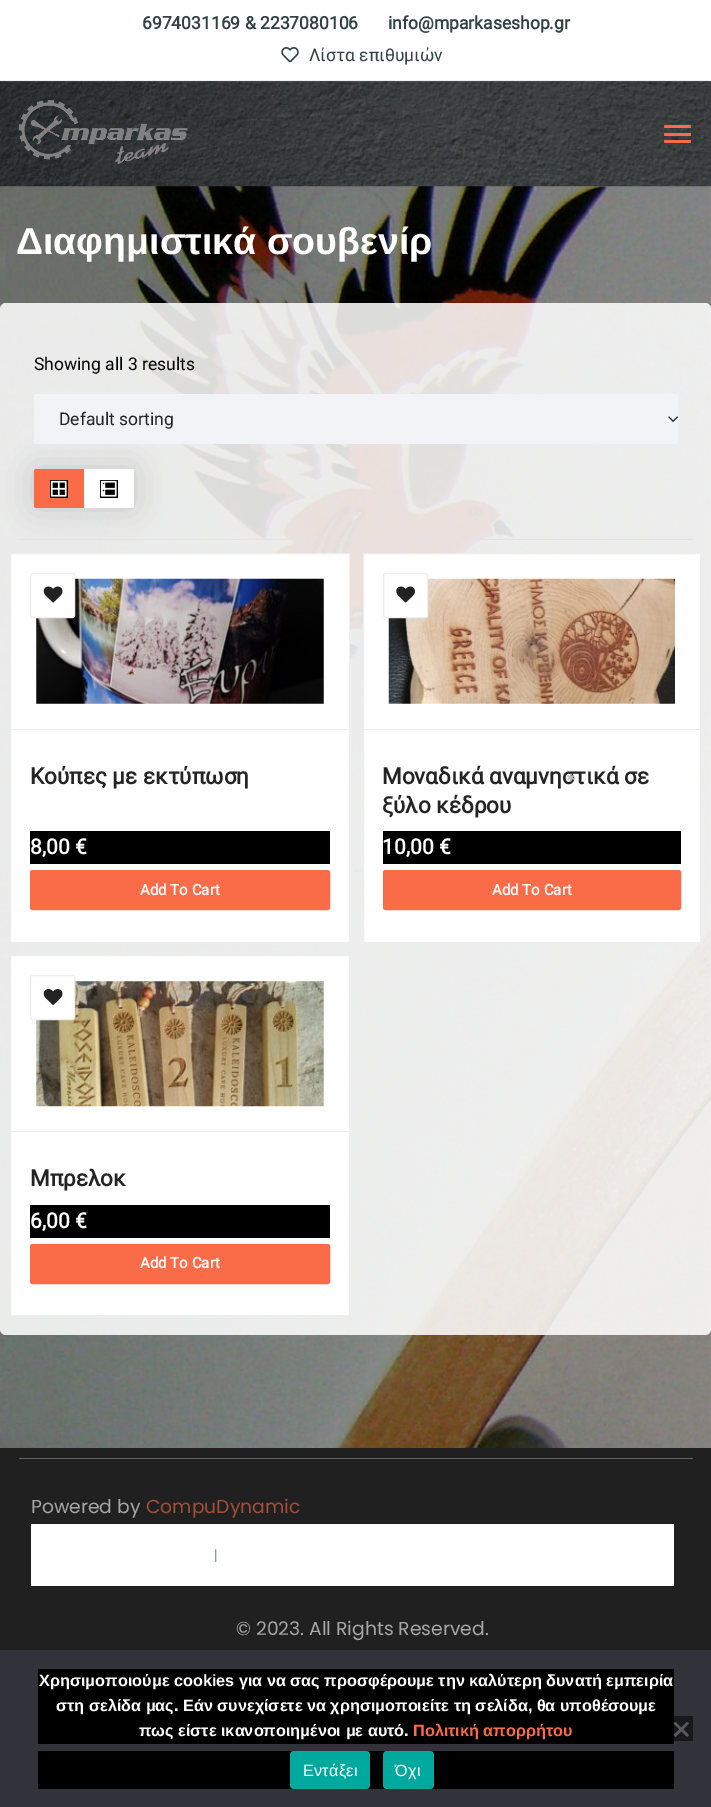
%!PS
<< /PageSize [711 1807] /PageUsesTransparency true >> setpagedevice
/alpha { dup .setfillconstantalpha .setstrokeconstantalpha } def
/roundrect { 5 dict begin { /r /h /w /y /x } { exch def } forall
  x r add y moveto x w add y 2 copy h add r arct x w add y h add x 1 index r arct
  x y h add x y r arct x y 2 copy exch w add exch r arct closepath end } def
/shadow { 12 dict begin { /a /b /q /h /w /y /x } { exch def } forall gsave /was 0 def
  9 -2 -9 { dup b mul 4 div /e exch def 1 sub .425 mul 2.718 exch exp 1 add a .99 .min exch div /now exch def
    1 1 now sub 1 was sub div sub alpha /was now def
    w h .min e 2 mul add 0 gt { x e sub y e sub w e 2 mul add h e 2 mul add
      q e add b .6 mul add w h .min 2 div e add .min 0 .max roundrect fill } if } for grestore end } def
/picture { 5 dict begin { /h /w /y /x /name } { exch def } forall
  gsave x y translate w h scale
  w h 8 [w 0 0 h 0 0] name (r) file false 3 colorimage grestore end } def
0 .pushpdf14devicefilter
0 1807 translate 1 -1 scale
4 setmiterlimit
1 setgray
0 0 711 1807 rectfill
(img1.rgb) 0 81 711 1367 picture
0.933 setgray
0 80 711 1 rectfill
/Roboto-Bold [17.5 0 0 -17.5 0 0] selectfont
0.2 0.255 0.255 setrgbcolor
142 29 moveto (6974031169 & 2237080106) show
388 29 moveto (info@mparkaseshop.gr) show
(img2.rgb) 281 47 18 16 picture
/Roboto-Regular [17.5 0 0 -17.5 0 0] selectfont
309 61 moveto (Λίστα επιθυμιών) show
(img3.rgb) 0 81 711 106 picture
(img4.rgb) 18 100 170 64 picture
0.98 0.424 0.282 setrgbcolor
664 125 27 3 1.5 roundrect fill
664 133 27 3 1.5 roundrect fill
664 140 27 3 1.5 roundrect fill
/LiberationSans-Bold [37.5 0 0 -37.5 0 0] selectfont
1 setgray
16 254 moveto (Διαφημιστικά σουβενίρ) show
0.3 alpha
0 303 711 1032 6 roundrect fill
0.8 alpha
0 303 711 1032 6 roundrect fill
1 alpha
0.89 setgray
19 539 674 1 rectfill
/Roboto-Regular [17.5 0 0 -17.5 0 0] selectfont
0 setgray
34 370 moveto (Showing all 3 results) show
34 469 100 39 2.5 15.5 0.15 shadow
0.945 0.953 0.965 setrgbcolor
34 394 644 50 2.5 roundrect fill
0.141 setgray
59 425 moveto (Default sorting) show
(img5.rgb) 668 416 10 6 picture
0.98 0.424 0.282 setrgbcolor
newpath 36.5 469 moveto 84 469 lineto 84 508 lineto 36.5 508 lineto 35 508 34 507 34 505.5 curveto 34 471.5 lineto 34 470 35 469 36.5 469 curveto closepath fill
0 setgray
50 480 18 18 rectfill
(img6.rgb) 50 480 17 17 picture
1 setgray
newpath 84 469 moveto 131.5 469 lineto 133 469 134 470 134 471.5 curveto 134 505.5 lineto 134 507 133 508 131.5 508 curveto 84 508 lineto closepath fill
0 setgray
100 480 18 18 rectfill
(img7.rgb) 100 480 17 17 picture
1 setgray
newpath 10.5 553.5 moveto 349.5 553.5 lineto 349.5 942.5 lineto 10.5 942.5 lineto closepath gsave fill grestore
0.933 setgray
stroke
(img9.rgb) 36 578 288 126 picture
1 setgray
30.5 573.5 44 44 2 roundrect gsave fill grestore
0.933 setgray
stroke
(img8.rgb) 43 586 20 17 picture
11 729 338 1 rectfill
/Roboto-Bold [22.5 0 0 -22.5 0 0] selectfont
0.141 setgray
30 784 moveto (Κούπες με εκτύπωση) show
0 setgray
30 831 300 33 rectfill
/Roboto-Bold [21 0 0 -21 0 0] selectfont
1 setgray
30 854 moveto (8,00 €) show
0.98 0.424 0.282 setrgbcolor
31.5 871.5 297 37 1 roundrect gsave fill grestore
3 setlinewidth
stroke
/Roboto-Bold [15 0 0 -15 0 0] selectfont
1 setgray
140 895 moveto (Add To Cart) show
newpath 363.5 553.5 moveto 700.5 553.5 lineto 700.5 942.5 lineto 363.5 942.5 lineto closepath gsave fill grestore
0.933 setgray
1 setlinewidth
stroke
(img11.rgb) 388 578 287 126 picture
1 setgray
383.5 573.5 44 44 2 roundrect gsave fill grestore
0.933 setgray
stroke
(img10.rgb) 396 586 19 17 picture
364 729 336 1 rectfill
/Roboto-Bold [22.5 0 0 -22.5 0 0] selectfont
0.141 setgray
382 784 moveto (Μοναδικά αναμνηστικά σε) show
382 813 moveto (ξύλο κέδρου) show
0 setgray
383 831 298 33 rectfill
/Roboto-Bold [21 0 0 -21 0 0] selectfont
1 setgray
382 854 moveto (10,00 €) show
0.98 0.424 0.282 setrgbcolor
384.5 871.5 295 37 1 roundrect gsave fill grestore
3 setlinewidth
stroke
/Roboto-Bold [15 0 0 -15 0 0] selectfont
1 setgray
492 895 moveto (Add To Cart) show
newpath 10.5 955.5 moveto 349.5 955.5 lineto 349.5 1315.5 lineto 10.5 1315.5 lineto closepath gsave fill grestore
0.933 setgray
1 setlinewidth
stroke
(img13.rgb) 36 981 288 126 picture
1 setgray
30.5 975.5 44 44 2 roundrect gsave fill grestore
0.933 setgray
stroke
(img12.rgb) 43 989 20 16 picture
11 1131 338 1 rectfill
/Roboto-Bold [22.5 0 0 -22.5 0 0] selectfont
0.141 setgray
30 1186 moveto (Μπρελοκ) show
0 setgray
30 1205 300 33 rectfill
/Roboto-Bold [21 0 0 -21 0 0] selectfont
1 setgray
30 1228 moveto (6,00 €) show
0.98 0.424 0.282 setrgbcolor
31.5 1245.5 297 37 1 roundrect gsave fill grestore
3 setlinewidth
stroke
/Roboto-Bold [15 0 0 -15 0 0] selectfont
1 setgray
140 1268 moveto (Add To Cart) show
0.125 0.125 0.129 setrgbcolor
0 1448 711 202 rectfill
0.388 0.388 0.392 setrgbcolor
19 1458 674 1 rectfill
/Poppins-Regular [18.75 0 0 -18.75 0 0] selectfont
0.651 setgray
31 1513 moveto (Powered by) show
0.639 0.306 0.22 setrgbcolor
146 1513 moveto (CompuDynamic) show
1 setgray
31 1524 643 62 rectfill
/Roboto-Regular [15 0 0 -15 0 0] selectfont
0.427 0.478 0.514 setrgbcolor
214 1560 moveto (|) show
/Poppins-Regular [18.75 0 0 -18.75 0 0] selectfont
0.651 setgray
236 1635 moveto (© 2023. All Rights Reserved.) show
/Poppins-Bold [18.75 0 0 -18.75 0 0] selectfont
0.749 setgray
566 788 moveto (*) show
0.196 0.196 0.227 setrgbcolor
0 1650 711 157 rectfill
0 setgray
38 1669 636 75 rectfill
/LiberationSans-Bold [16.25 0 0 -16.25 0 0] selectfont
1 setgray
39 1686 moveto (Χρησιμοποιούμε cookies για να σας προσφέρουμε την καλύτερη δυνατή εμπειρία) show
56 1711 moveto (στη σελίδα μας. Εάν συνεχίσετε να χρησιμοποιείτε τη σελίδα, θα υποθέσουμε) show
139 1736 moveto (πως είστε ικανοποιημένοι με αυτό.) show
0.98 0.424 0.282 setrgbcolor
413 1736 moveto (Πολιτική απορρήτου) show
0.5 alpha
0 setgray
674 1716 19 25 rectfill
1 alpha
0.349 0.349 0.365 setrgbcolor
newpath 687 1722 moveto 689 1723.5 lineto 675.5 1737 lineto 673.5 1735 lineto closepath fill
newpath 673.5 1723.5 moveto 675.5 1722 lineto 689 1735 lineto 687 1737 lineto closepath fill
0 setgray
38 1751 636 38 rectfill
0 0.663 0.616 setrgbcolor
290 1751 80 38 4 roundrect fill
/LiberationSans-Regular [16.25 0 0 -16.25 0 0] selectfont
1 setgray
303 1776 moveto 0.25 0 (Εντάξει) ashow
0 0.663 0.616 setrgbcolor
383 1751 51 38 4 roundrect fill
1 setgray
395 1776 moveto 0.25 0 (Όχι) ashow
.poppdf14devicefilter showpage
